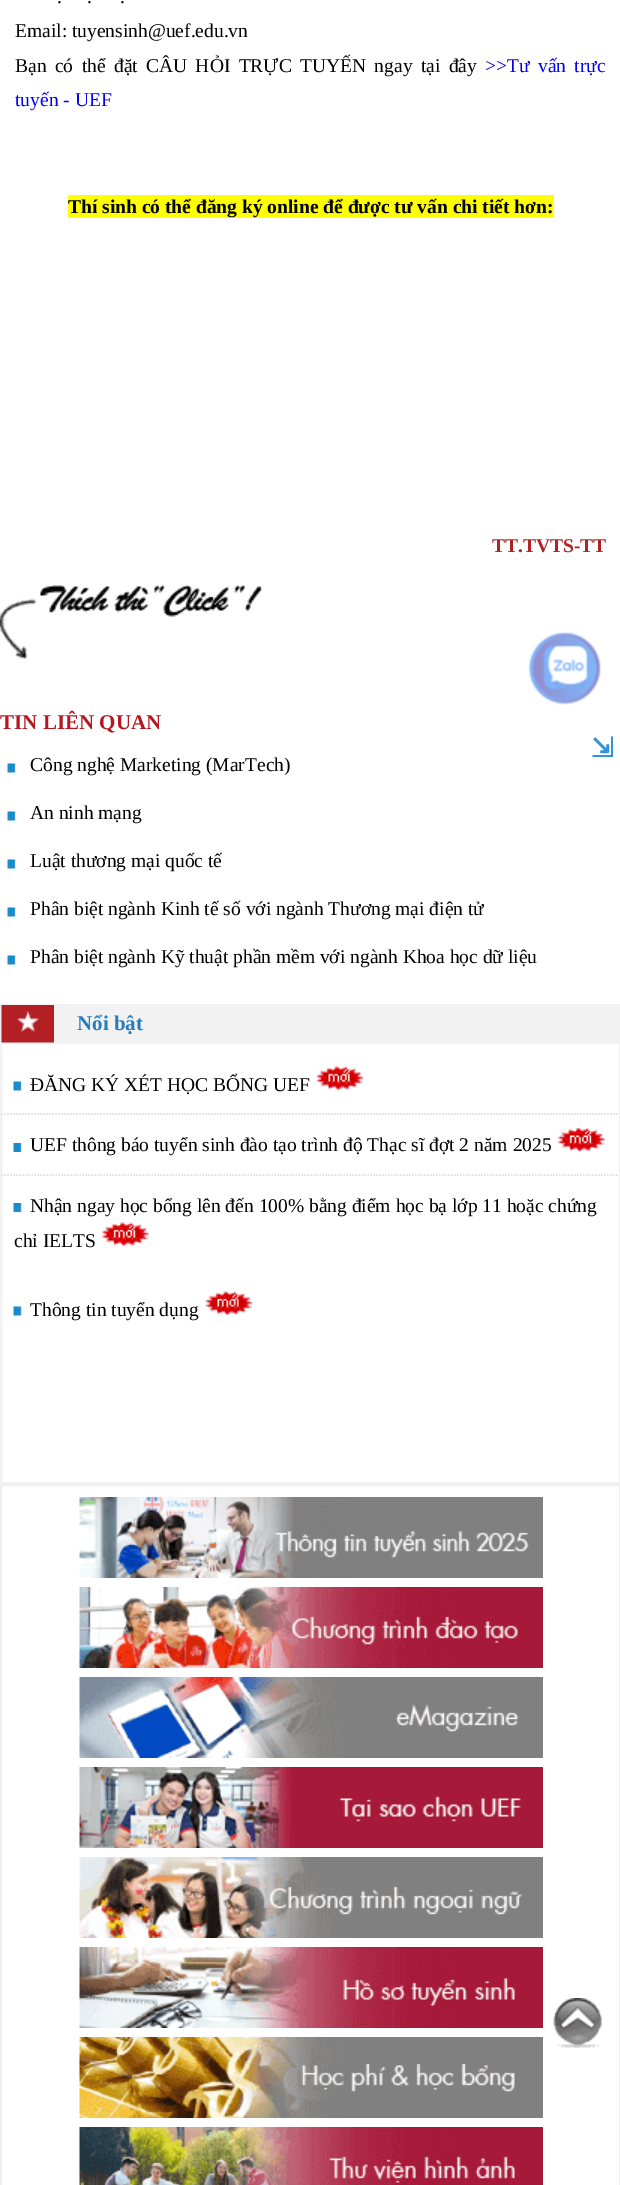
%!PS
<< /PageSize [620 2185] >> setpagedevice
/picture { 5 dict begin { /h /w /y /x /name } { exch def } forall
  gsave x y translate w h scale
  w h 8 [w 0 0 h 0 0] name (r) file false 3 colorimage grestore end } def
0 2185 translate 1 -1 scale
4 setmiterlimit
1 setgray
0 0 620 2185 rectfill
/LiberationSerif-Regular [19.5 0 0 -19.5 0 0] selectfont
0 setgray
57 3 moveto (.) show
87 3 moveto (.) show
120 3 moveto (.) show
15 37 moveto (Email: tuyensinh@uef.edu.vn) show
15 72 moveto 3.5 0 32 (Bạn có thể đặt CÂU HỎI TRỰC TUYẾN ngay tại đây) widthshow
0 0 0.933 setrgbcolor
485 72 moveto 3.5 0 32 (>>Tư vấn trực) widthshow
15 106 moveto (tuyến - UEF) show
1 1 0 setrgbcolor
68 195 486 23 rectfill
/LiberationSerif-Bold [19.5 0 0 -19.5 0 0] selectfont
0 setgray
68 213 moveto (Thí sinh có thể đăng ký online để được tư vấn chi tiết hơn:) show
0.698 0.133 0.133 setrgbcolor
492 552 moveto (TT.TVTS-TT) show
(img1.rgb) 0 585 262 74 picture
/LiberationSerif-Bold [21 0 0 -21 0 0] selectfont
0.714 0.086 0.125 setrgbcolor
0 729 moveto (TIN LIÊN QUAN) show
(img2.rgb) 7 763 9 10 picture
/LiberationSerif-Regular [19.5 0 0 -19.5 0 0] selectfont
0 setgray
30 771 moveto (Công nghệ Marketing \(MarTech\)) show
(img2.rgb) 7 811 9 10 picture
30 819 moveto (An ninh mạng) show
(img2.rgb) 7 859 9 10 picture
30 867 moveto (Luật thương mại quốc tế) show
(img2.rgb) 7 907 9 10 picture
30 915 moveto (Phân biệt ngành Kinh tế số với ngành Thương mại điện tử) show
(img2.rgb) 7 955 9 10 picture
30 963 moveto (Phân biệt ngành Kỹ thuật phần mềm với ngành Khoa học dữ liệu) show
0.945 setgray
2 setlinewidth
1 1005 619 478 rectstroke
0.949 setgray
2 1006 617 38 rectfill
(img3.rgb) 1 1005 53 38 picture
/LiberationSerif-Bold [21 0 0 -21 0 0] selectfont
0.149 0.49 0.733 setrgbcolor
77 1030 moveto (Nổi bật) show
0.871 setgray
1.5 setlinewidth
[1.5 1.5] 0 setdash
newpath 1.5 1114 moveto 619.5 1114 lineto stroke
(img2.rgb) 13 1081 9 10 picture
/LiberationSerif-Regular [19.5 0 0 -19.5 0 0] selectfont
0 setgray
30 1091 moveto (ĐĂNG KÝ XÉT HỌC BỔNG UEF) show
(img4.rgb) 316 1066 49 25 picture
0.871 setgray
newpath 1.5 1175 moveto 619.5 1175 lineto stroke
(img5.rgb) 13 1143 9 9 picture
0 setgray
30 1151 moveto (UEF thông báo tuyển sinh đào tạo trình độ Thạc sĩ đợt 2 năm 2025) show
(img6.rgb) 557 1128 49 24 picture
30 1212 moveto (Nhận ngay học bổng lên đến 100% bằng điểm học bạ lớp 11 hoặc chứng) show
14 1247 moveto (chỉ IELTS) show
(img7.rgb) 101 1222 49 25 picture
(img5.rgb) 13 1203 9 9 picture
(img2.rgb) 13 1306 9 10 picture
30 1316 moveto (Thông tin tuyển dụng) show
(img8.rgb) 205 1291 49 25 picture
0.937 setgray
2 setlinewidth
[] 0 setdash
1 1485 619 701 rectstroke
(img9.rgb) 79 1497 464 81 picture
(img10.rgb) 79 1587 464 81 picture
(img11.rgb) 79 1677 464 81 picture
(img12.rgb) 79 1767 464 81 picture
(img13.rgb) 79 1857 464 81 picture
(img14.rgb) 79 1947 464 81 picture
(img15.rgb) 79 2037 464 81 picture
(img16.rgb) 79 2127 464 58 picture
(img17.rgb) 528 632 73 73 picture
/DejaVuSans-Bold [27 0 0 -27 0 0] selectfont
0.204 0.573 0.839 setrgbcolor
591 757 moveto (⇲) show
(img18.rgb) 553 1998 49 50 picture
showpage
